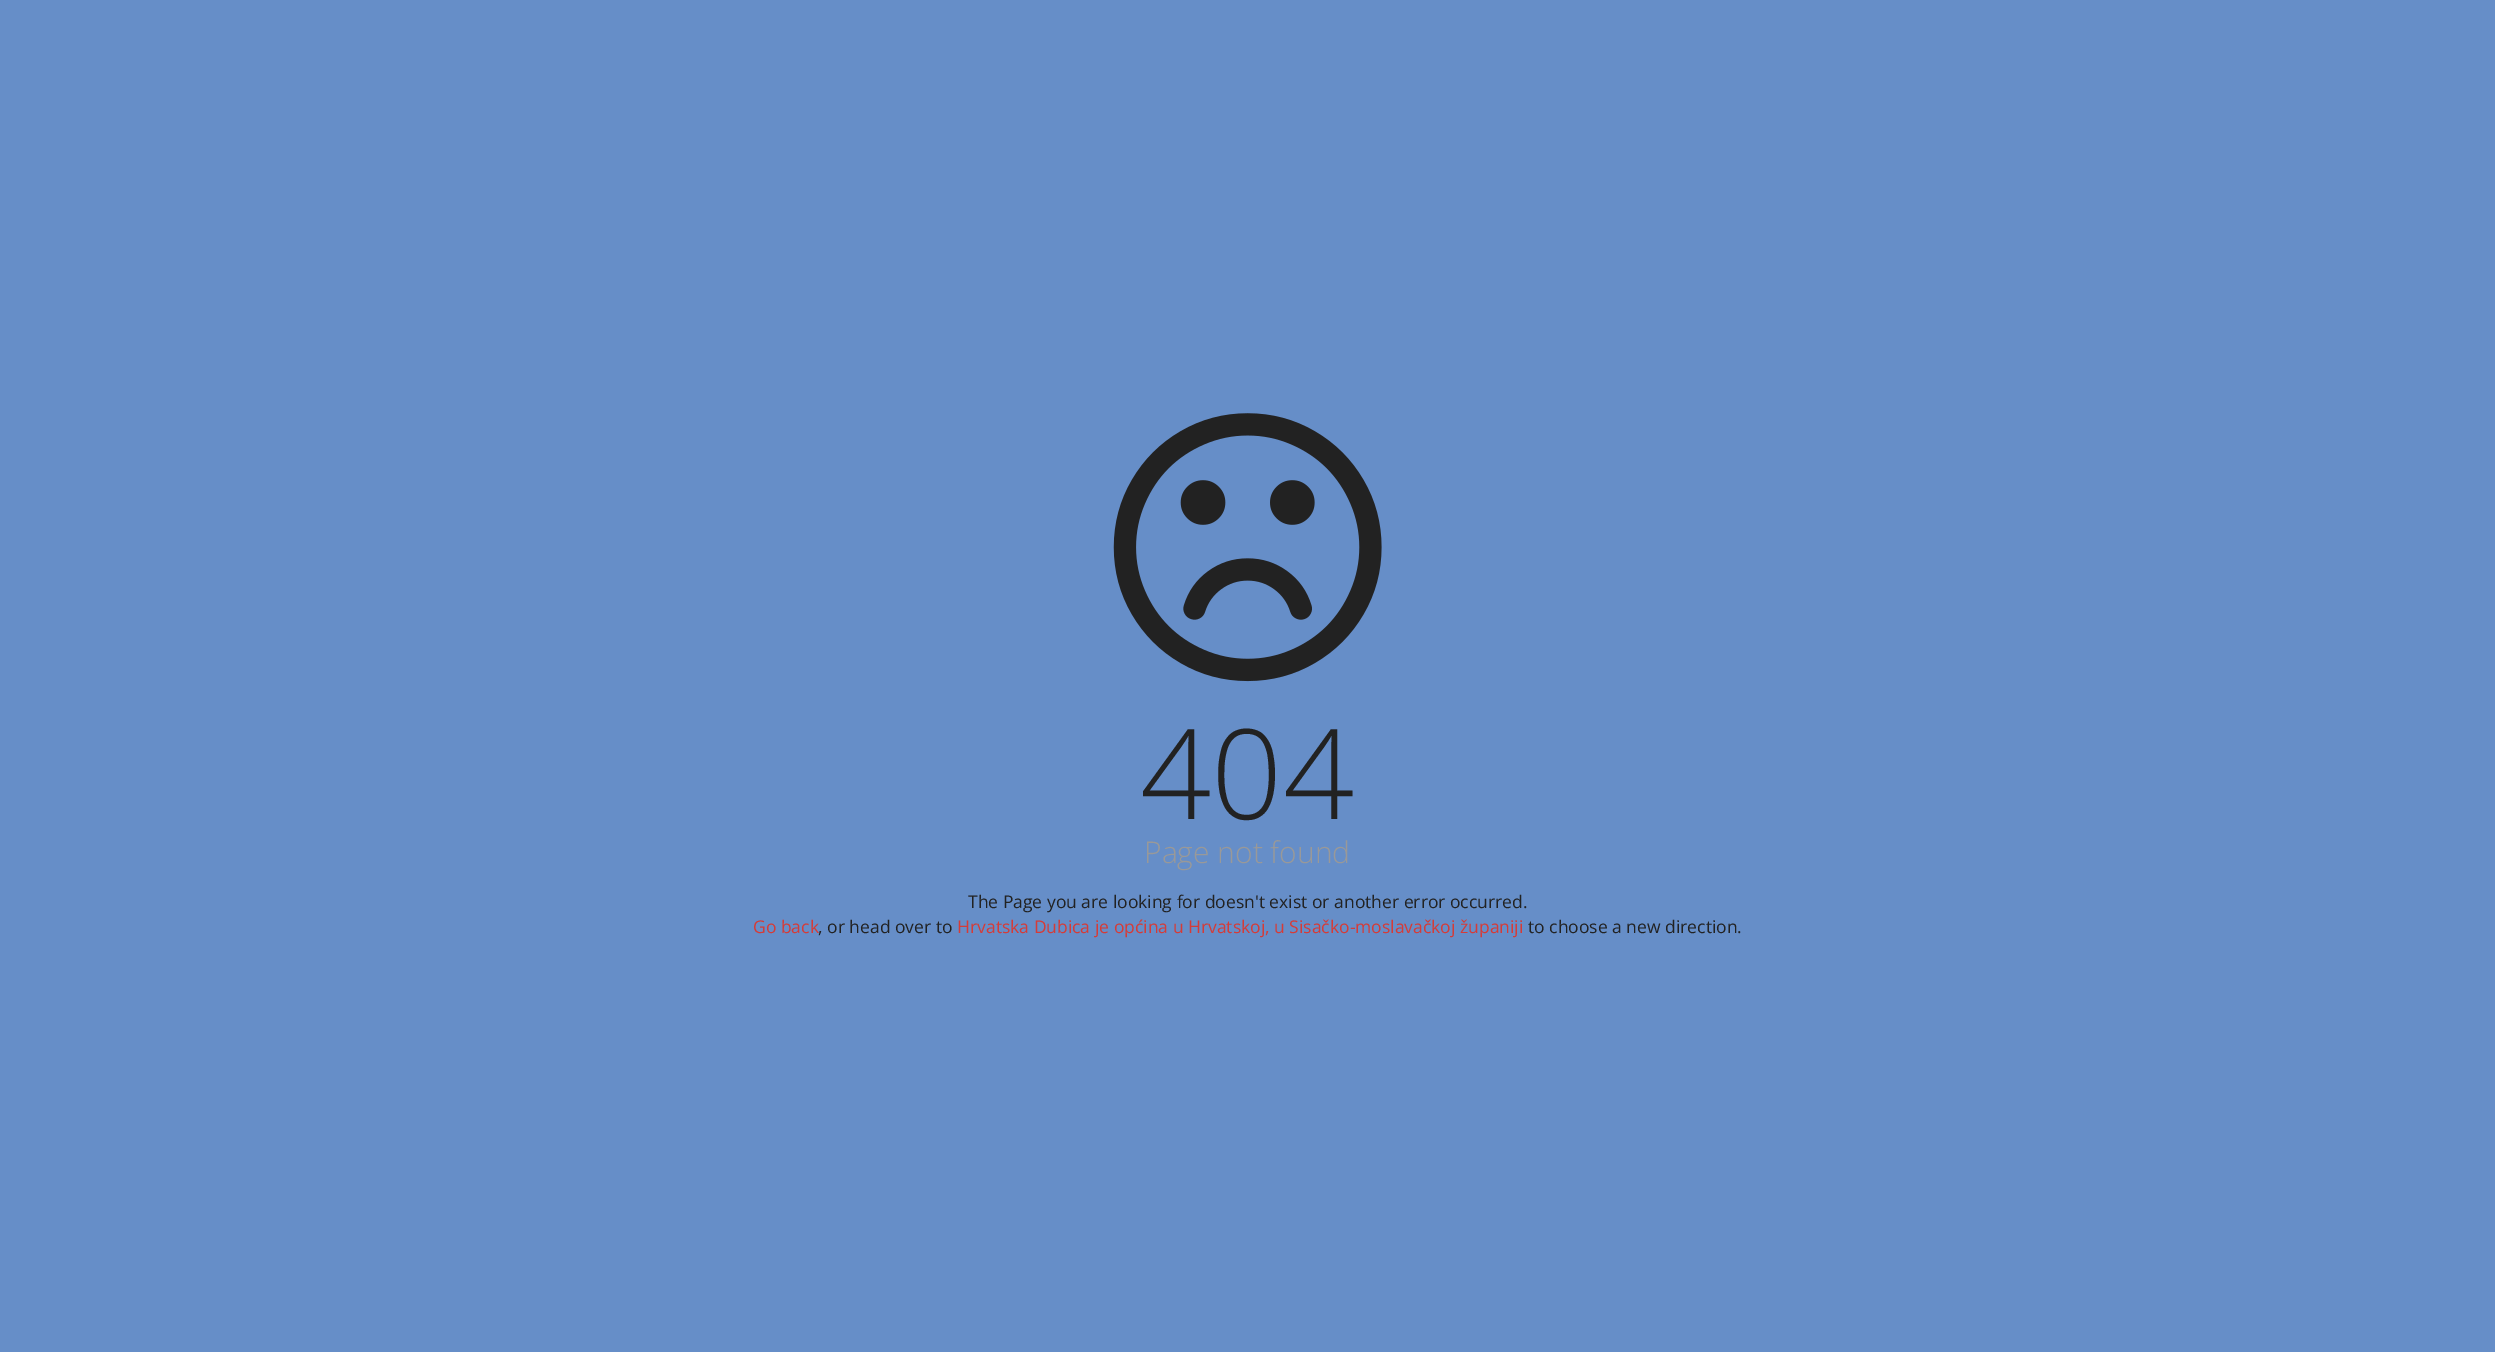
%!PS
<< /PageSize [2495 1352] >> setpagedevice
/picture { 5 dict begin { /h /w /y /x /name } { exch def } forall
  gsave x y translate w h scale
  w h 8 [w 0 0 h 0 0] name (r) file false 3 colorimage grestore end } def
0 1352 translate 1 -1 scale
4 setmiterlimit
0.4 0.557 0.784 setrgbcolor
0 0 2495 1352 rectfill
(img1.rgb) 1113 413 269 269 picture
/OpenSans-Light [125 0 0 -125 0 0] selectfont
0.133 setgray
1140 819 moveto (404) show
/OpenSans-Light [30 0 0 -30 0 0] selectfont
0.6 setgray
1144 863 moveto (Page not found) show
/OpenSans-Regular [17.5 0 0 -17.5 0 0] selectfont
0.133 setgray
968 908 moveto (The Page you are looking for doesn't exist or another error occurred.) show
0.839 0.231 0.216 setrgbcolor
753 933 moveto (Go back) show
0.133 setgray
818 933 moveto (, or head over to) show
0.839 0.231 0.216 setrgbcolor
957 933 moveto (Hrvatska Dubica je općina u Hrvatskoj, u Sisačko-moslavačkoj županiji) show
0.133 setgray
1528 933 moveto (to choose a new direction.) show
showpage
